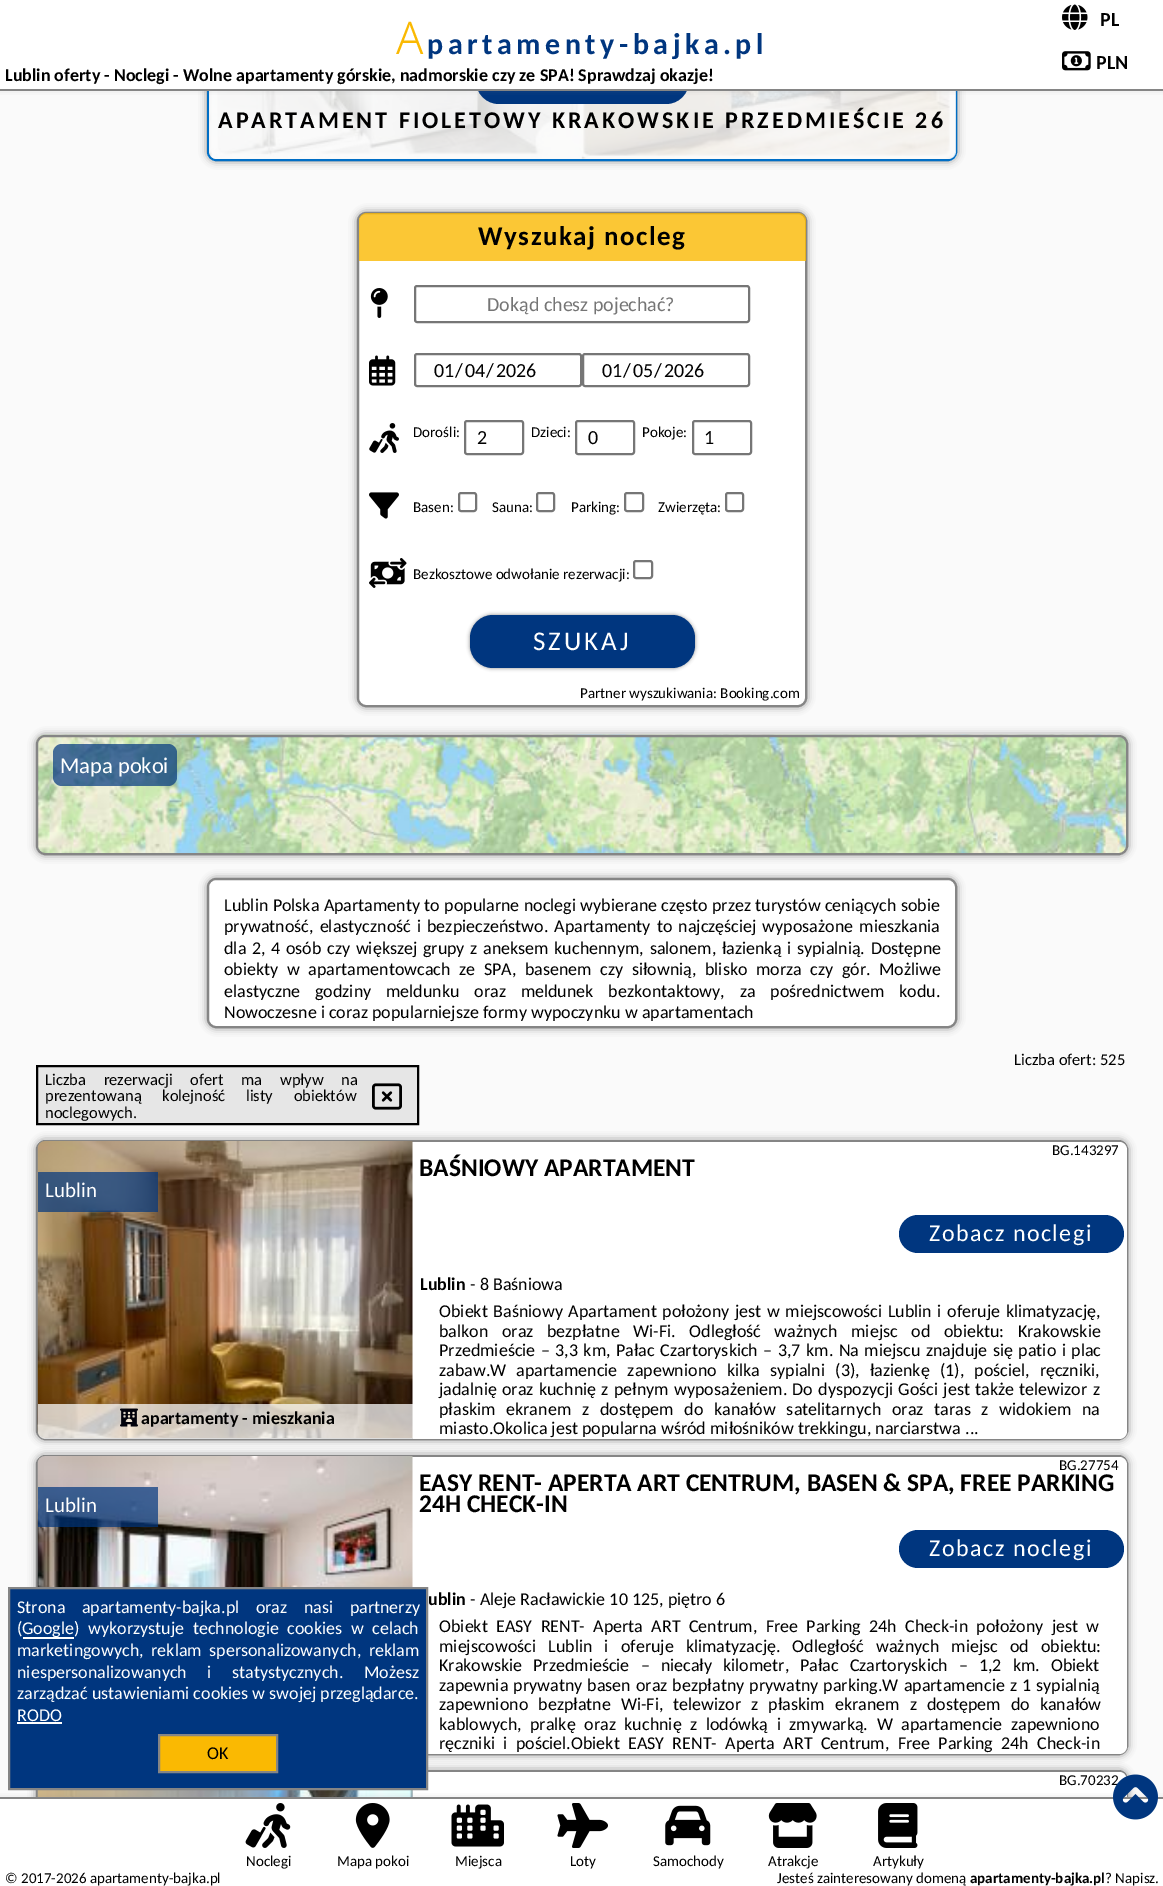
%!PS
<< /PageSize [1163 1886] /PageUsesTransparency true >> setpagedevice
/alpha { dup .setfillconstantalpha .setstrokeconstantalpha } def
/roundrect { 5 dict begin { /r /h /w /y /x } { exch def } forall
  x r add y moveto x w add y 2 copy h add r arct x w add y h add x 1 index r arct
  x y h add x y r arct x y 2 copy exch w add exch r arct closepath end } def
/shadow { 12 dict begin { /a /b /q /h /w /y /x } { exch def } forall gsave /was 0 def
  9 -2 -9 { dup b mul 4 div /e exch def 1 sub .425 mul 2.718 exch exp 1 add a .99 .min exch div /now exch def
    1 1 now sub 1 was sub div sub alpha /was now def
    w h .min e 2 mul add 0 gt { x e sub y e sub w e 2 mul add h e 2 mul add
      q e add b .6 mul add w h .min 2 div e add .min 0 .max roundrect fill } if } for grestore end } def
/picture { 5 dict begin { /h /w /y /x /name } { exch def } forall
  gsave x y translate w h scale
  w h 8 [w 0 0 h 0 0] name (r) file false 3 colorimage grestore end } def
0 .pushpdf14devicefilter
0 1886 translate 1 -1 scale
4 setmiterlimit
0.98 setgray
0 0 1163 1886 rectfill
0.522 setgray
207 -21 750 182 9 4 1 shadow
0.98 setgray
207 -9 750 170 9 roundrect fill
(img3.rgb) 209 91 746 68 picture
0 0.431 0.773 setrgbcolor
2 setlinewidth
208 -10 748 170 8 roundrect stroke
0.85 alpha
0.98 setgray
newpath 209 84 moveto 956 84 lineto 956 151 lineto 956 155.5 952.5 159 948 159 curveto 217 159 lineto 212.5 159 209 155.5 209 151 curveto closepath fill
1 alpha
0 0.212 0.498 setrgbcolor
476 57 213 47 23 roundrect fill
0.522 setgray
0 -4 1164 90 0 4 1 shadow
1 setgray
0 0 1163 89 rectfill
0.522 setgray
0 89 1163 2 rectfill
(img1.rgb) 1062 4 26 26 picture
/Carlito-Bold [20 0 0 -20 0 0] selectfont
0 setgray
1100 26 moveto (PL) show
/NotoSans-Light [45 0 0 -45 0 0] selectfont
0.98 0.725 0.008 setrgbcolor
396 54 moveto 4.5 0 (A) ashow
/Carlito-Bold [30 0 0 -30 0 0] selectfont
0 0.212 0.498 setrgbcolor
427 54 moveto 4.5 0 (partamenty-bajka.pl) ashow
(img2.rgb) 1062 51 29 20 picture
/Carlito-Bold [20 0 0 -20 0 0] selectfont
0 setgray
1096 69 moveto (PLN) show
/Carlito-Bold [18 0 0 -18 0 0] selectfont
5 81 moveto (Lublin oferty - Noclegi - Wolne apartamenty górskie, nadmorskie czy ze SPA! Sprawdzaj okazje!) show
/Carlito-Bold [24 0 0 -24 0 0] selectfont
218 128 moveto 3 0 (APARTAMENT FIOLETOWY KRAKOWSKIE PRZEDMIEŚCIE 26) ashow
0.522 setgray
357 212 450 495 9 4 1 shadow
1 setgray
358 213 448 493 8 roundrect gsave fill grestore
0.522 setgray
stroke
0.8 alpha
0.98 0.725 0.008 setrgbcolor
newpath 367 213 moveto 798 213 lineto 802.5 213 806 216.5 806 221 curveto 806 261 lineto 359 261 lineto 359 221 lineto 359 216.5 362.5 213 367 213 curveto closepath fill
/Carlito-Bold [27 0 0 -27 0 0] selectfont
1 alpha
0 setgray
478 245 moveto 1.5 0 (Wyszukaj nocleg) ashow
(img4.rgb) 370 288 18 30 picture
0.463 setgray
415 286 334 36 2 roundrect stroke
/Carlito-Regular [20 0 0 -20 0 0] selectfont
0.459 setgray
487 311 moveto (Dokąd chesz pojechać?) show
(img5.rgb) 369 355 27 31 picture
0.463 setgray
415 354 166 32 2 roundrect stroke
0 setgray
434 377 moveto (01) show
455 377 moveto (/) show
465 377 moveto (04) show
486 377 moveto (/) show
496 377 moveto (2026) show
0.463 setgray
583 354 166 32 2 roundrect stroke
0 setgray
602 377 moveto (01) show
623 377 moveto (/) show
633 377 moveto (05) show
654 377 moveto (/) show
664 377 moveto (2026) show
(img6.rgb) 369 423 30 30 picture
/Carlito-Regular [15 0 0 -15 0 0] selectfont
413 437 moveto (Dorośli:) show
0.463 setgray
465 421 58 33 2 roundrect stroke
/Carlito-Regular [20 0 0 -20 0 0] selectfont
0 setgray
477 444 moveto (2) show
/Carlito-Regular [15 0 0 -15 0 0] selectfont
531 437 moveto (Dzieci:) show
0.463 setgray
576 421 58 33 2 roundrect stroke
/Carlito-Regular [20 0 0 -20 0 0] selectfont
0 setgray
588 444 moveto (0) show
/Carlito-Regular [15 0 0 -15 0 0] selectfont
642 437 moveto (Pokoje:) show
0.463 setgray
693 421 58 33 2 roundrect stroke
/Carlito-Regular [20 0 0 -20 0 0] selectfont
0 setgray
704 444 moveto (1) show
(img7.rgb) 369 492 30 27 picture
/Carlito-Regular [15 0 0 -15 0 0] selectfont
413 512 moveto (Basen:) show
0.463 setgray
459 493 17 18 2 roundrect stroke
0 setgray
492 512 moveto (Sauna:) show
0.463 setgray
537 493 17 18 2 roundrect stroke
0 setgray
571 512 moveto (Parking:) show
0.463 setgray
625 493 18 18 2 roundrect stroke
0 setgray
658 512 moveto (Zwierzęta:) show
0.463 setgray
726 493 17 18 2 roundrect stroke
(img8.rgb) 369 558 38 30 picture
0 setgray
413 579 moveto (Bezkosztowe odwołanie rezerwacji:) show
0.463 setgray
634 561 18 17 2 roundrect stroke
0.522 setgray
470 615 225 53 23 2 1 shadow
0 0.212 0.498 setrgbcolor
470 615 225 53 23 roundrect fill
/Carlito-Regular [27 0 0 -27 0 0] selectfont
1 setgray
533 650 moveto 3 0 (SZUKAJ) ashow
/Carlito-Regular [15 0 0 -15 0 0] selectfont
0 setgray
580 698 moveto (Partner wyszukiwania: Booking.com) show
0.522 setgray
36 735 1092 120 9 4 1 shadow
(img9.rgb) 36 734 1092 121 picture
37 736 1090 118 8 roundrect stroke
0.7 alpha
0 0.212 0.498 setrgbcolor
53 744 124 42 9 roundrect fill
/Carlito-Regular [22.5 0 0 -22.5 0 0] selectfont
1 alpha
1 setgray
60 773 moveto (Mapa pokoi) show
0.522 setgray
207 878 750 150 9 4 1 shadow
1 setgray
208 879 748 148 8 roundrect gsave fill grestore
0.522 setgray
stroke
/Carlito-Regular [18 0 0 -18 0 0] selectfont
0 setgray
224 911 moveto 0.25 0 32 (Lublin Polska Apartamenty to popularne noclegi wybierane często przez turystów ceniących sobie) widthshow
224 932 moveto 2 0 32 (prywatność, elastyczność i bezpieczeństwo. Apartamenty to najczęściej wyposażone mieszkania) widthshow
224 954 moveto 1.6 0 32 (dla 2, 4 osób czy większej grupy z aneksem kuchennym, salonem, łazienką i sypialnią. Dostępne) widthshow
224 975 moveto 4.5 0 32 (obiekty w apartamentowcach ze SPA, basenem czy siłownią, blisko morza czy gór. Możliwe) widthshow
224 997 moveto 10.75 0 32 (elastyczne godziny meldunku oraz meldunek bezkontaktowy, za pośrednictwem kodu.) widthshow
224 1018 moveto (Nowoczesne i coraz popularniejsze formy wypoczynku w apartamentach) show
/Carlito-Regular [16.5 0 0 -16.5 0 0] selectfont
1014 1065 moveto (Liczba ofert: 525) show
0.902 setgray
newpath 37 1066 moveto 418 1066 lineto 418 1124 lineto 37 1124 lineto closepath gsave fill grestore
0 setgray
stroke
45 1085 moveto 14 0 32 (Liczba rezerwacji ofert ma wpływ na) widthshow
45 1101 moveto 17 0 32 (prezentowaną kolejność listy obiektów) widthshow
(img10.rgb) 372 1083 30 27 picture
45 1118 moveto (noclegowych.) show
0.522 setgray
36 1140 1092 300 9 4 1 shadow
1 setgray
36 1140 1092 300 9 roundrect fill
(img11.rgb) 36 1139 1092 295 picture
0.522 setgray
37 1141 1090 298 8 roundrect stroke
(img12.rgb) 37 1141 376 297 picture
1 setgray
newpath 413 1142 moveto 1119 1142 lineto 1123.5 1142 1127 1145.5 1127 1150 curveto 1127 1259 lineto 413 1259 lineto closepath fill
/Carlito-Regular [15 0 0 -15 0 0] selectfont
0 setgray
1052 1155 moveto (BG.143297) show
/Carlito-Bold [25.5 0 0 -25.5 0 0] selectfont
419 1176 moveto (BAŚNIOWY APARTAMENT) show
0.7 alpha
0 0.212 0.498 setrgbcolor
38 1172 120 40 rectfill
/Carlito-Regular [21 0 0 -21 0 0] selectfont
1 alpha
1 setgray
45 1197 moveto (Lublin) show
0 0.212 0.498 setrgbcolor
899 1215 225 38 19 roundrect fill
/Carlito-Regular [24 0 0 -24 0 0] selectfont
1 setgray
929 1241 moveto 1.5 0 (Zobacz noclegi) ashow
0.75 alpha
0.98 setgray
newpath 38 1404 moveto 413 1404 lineto 413 1439 lineto 46 1439 lineto 41.5 1439 38 1435.5 38 1431 curveto closepath fill
1 alpha
(img13.rgb) 120 1408 18 19 picture
/Carlito-Bold [18 0 0 -18 0 0] selectfont
0 setgray
141 1424 moveto (apartamenty - mieszkania) show
1 setgray
newpath 413 1259 moveto 1127 1259 lineto 1127 1431 lineto 1127 1435.5 1123.5 1439 1119 1439 curveto 413 1439 lineto closepath fill
0 setgray
420 1290 moveto (Lublin) show
/Carlito-Regular [18 0 0 -18 0 0] selectfont
470 1290 moveto (- 8 Baśniowa) show
439 1317 moveto 1.5 0 32 (Obiekt Baśniowy Apartament położony jest w miejscowości Lublin i oferuje klimatyzację,) widthshow
439 1337 moveto 9.5 0 32 (balkon oraz bezpłatne Wi-Fi. Odległość ważnych miejsc od obiektu: Krakowskie) widthshow
439 1356 moveto 1.4 0 32 (Przedmieście – 3,3 km, Pałac Czartoryskich – 3,7 km. Na miejscu znajduje się patio i plac) widthshow
439 1376 moveto 6 0 32 (zabaw.W apartamencie zapewniono kilka sypialni \(3\), łazienkę \(1\), pościel, ręczniki,) widthshow
439 1395 moveto 1.25 0 32 (jadalnię oraz kuchnię z pełnym wyposażeniem. Do dyspozycji Gości jest także telewizor z) widthshow
439 1415 moveto 6.75 0 32 (płaskim ekranem z dostępem do kanałów satelitarnych oraz taras z widokiem na) widthshow
439 1434 moveto (miasto.Okolica jest popularna wśród miłośników trekkingu, narciarstwa ...) show
0.522 setgray
36 1455 1092 300 9 4 1 shadow
(img11.rgb) 36 1454 1092 295 picture
37 1456 1090 298 8 roundrect stroke
(img14.rgb) 37 1456 376 131 picture
1 setgray
newpath 413 1457 moveto 1119 1457 lineto 1123.5 1457 1127 1460.5 1127 1465 curveto 1127 1574 lineto 413 1574 lineto closepath fill
/Carlito-Regular [15 0 0 -15 0 0] selectfont
0 setgray
1059 1470 moveto (BG.27754) show
0.7 alpha
0 0.212 0.498 setrgbcolor
38 1487 120 40 rectfill
/Carlito-Regular [21 0 0 -21 0 0] selectfont
1 alpha
1 setgray
45 1512 moveto (Lublin) show
/Carlito-Bold [25.5 0 0 -25.5 0 0] selectfont
0 setgray
419 1491 moveto (EASY RENT- APERTA ART CENTRUM, BASEN & SPA, FREE PARKING) show
419 1512 moveto (24H CHECK-IN) show
0 0.212 0.498 setrgbcolor
899 1530 225 38 19 roundrect fill
/Carlito-Regular [24 0 0 -24 0 0] selectfont
1 setgray
929 1556 moveto 1.5 0 (Zobacz noclegi) ashow
newpath 413 1574 moveto 1127 1574 lineto 1127 1746 lineto 1127 1750.5 1123.5 1754 1119 1754 curveto 413 1754 lineto closepath fill
/Carlito-Bold [18 0 0 -18 0 0] selectfont
0 setgray
428 1605 moveto (ublin) show
/Carlito-Regular [18 0 0 -18 0 0] selectfont
470 1605 moveto (- Aleje Racławickie 10 125, piętro 6) show
439 1632 moveto 4.25 0 32 (Obiekt EASY RENT- Aperta ART Centrum, Free Parking 24h Check-in położony jest w) widthshow
439 1652 moveto 8 0 32 (miejscowości Lublin i oferuje klimatyzację. Odległość ważnych miejsc od obiektu:) widthshow
439 1671 moveto 7 0 32 (Krakowskie Przedmieście – niecały kilometr, Pałac Czartoryskich – 1,2 km. Obiekt) widthshow
439 1691 moveto 1 0 32 (zapewnia prywatny basen oraz bezpłatny prywatny parking.W apartamencie z 1 sypialnią) widthshow
439 1710 moveto 6 0 32 (zapewniono bezpłatne Wi-Fi, telewizor z płaskim ekranem z dostępem do kanałów) widthshow
439 1730 moveto 4.5 0 32 (kablowych, pralkę oraz kuchnię z lodówką i zmywarką. W apartamencie zapewniono) widthshow
439 1749 moveto 4.25 0 32 (ręczniki i pościel.Obiekt EASY RENT- Aperta ART Centrum, Free Parking 24h Check-in) widthshow
0.522 setgray
36 1770 1092 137 9 4 1 shadow
(img15.rgb) 412 1769 716 28 picture
37 1771 1090 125 8 roundrect stroke
1 setgray
newpath 413 1772 moveto 1119 1772 lineto 1123.5 1772 1127 1775.5 1127 1780 curveto 1127 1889 lineto 413 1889 lineto closepath fill
/Carlito-Regular [15 0 0 -15 0 0] selectfont
0 setgray
1059 1785 moveto (BG.70232) show
(img16.rgb) 37 1790 376 7 picture
0.522 setgray
0 1802 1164 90 0 4 1 shadow
0 0.212 0.498 setrgbcolor
newpath 9 1588 moveto 427 1588 lineto 427 1789 lineto 9 1789 lineto closepath gsave fill grestore
0.522 setgray
stroke
/Carlito-Regular [18 0 0 -18 0 0] selectfont
1 setgray
17 1613 moveto 12.5 0 32 (Strona apartamenty-bajka.pl oraz nasi partnerzy) widthshow
17 1634 moveto (\() show
23 1637 51 2 rectfill
22 1634 moveto (Google) show
74 1634 moveto 4.5 0 32 (\) wykorzystuje technologie cookies w celach) widthshow
17 1656 moveto 3.5 0 32 (marketingowych, reklam spersonalizowanych, reklam) widthshow
17 1678 moveto 16.5 0 32 (niespersonalizowanych i statystycznych. Możesz) widthshow
17 1699 moveto (zarządzać ustawieniami cookies w swojej przeglądarce.) show
17 1721 moveto (RODO) show
17 1722 45 2 rectfill
0.98 0.725 0.008 setrgbcolor
newpath 159 1735 moveto 277 1735 lineto 277 1772 lineto 159 1772 lineto closepath gsave fill grestore
0.522 setgray
stroke
0 setgray
207 1759 moveto (OK) show
1 setgray
0 1799 1163 87 rectfill
0.522 setgray
0 1797 1163 2 rectfill
(img17.rgb) 1113 1774 45 46 picture
(img18.rgb) 245 1803 46 45 picture
/Carlito-Regular [15 0 0 -15 0 0] selectfont
0 setgray
246 1866 moveto (Noclegi) show
(img19.rgb) 355 1803 35 45 picture
337 1866 moveto (Mapa pokoi) show
(img20.rgb) 451 1804 53 43 picture
455 1866 moveto (Miejsca) show
(img21.rgb) 557 1803 51 45 picture
570 1866 moveto (Loty) show
(img22.rgb) 665 1805 46 41 picture
653 1866 moveto (Samochody) show
(img23.rgb) 768 1803 49 45 picture
768 1866 moveto (Atrakcje) show
(img24.rgb) 878 1803 40 45 picture
873 1866 moveto (Artykuły) show
5 1883 moveto (© 2017-2026 apartamenty-bajka.pl) show
777 1883 moveto (Jesteś zainteresowany domeną) show
/Carlito-Bold [15 0 0 -15 0 0] selectfont
970 1883 moveto (apartamenty-bajka.pl) show
/Carlito-Regular [15 0 0 -15 0 0] selectfont
1105 1883 moveto (? Napisz.) show
.poppdf14devicefilter showpage
